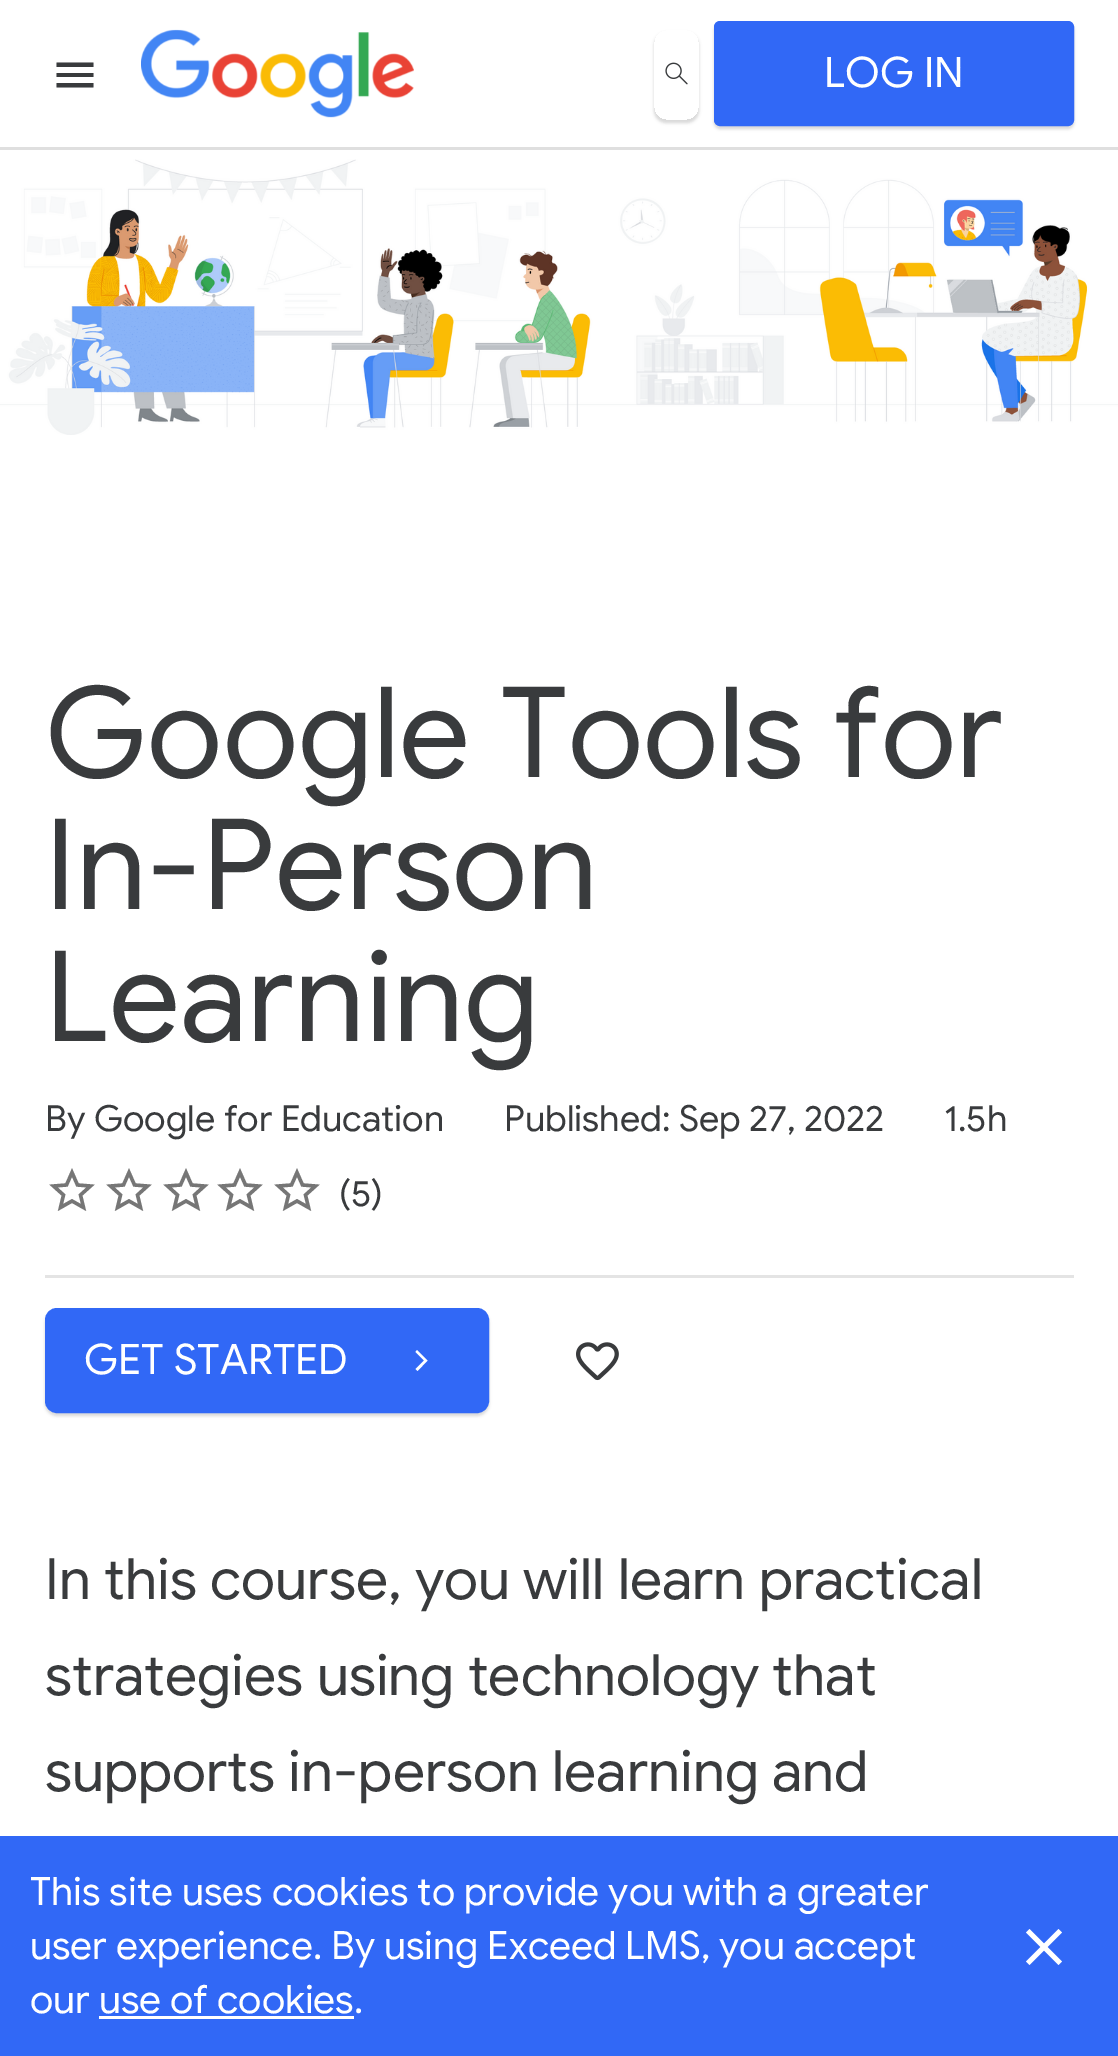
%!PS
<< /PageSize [1118 2056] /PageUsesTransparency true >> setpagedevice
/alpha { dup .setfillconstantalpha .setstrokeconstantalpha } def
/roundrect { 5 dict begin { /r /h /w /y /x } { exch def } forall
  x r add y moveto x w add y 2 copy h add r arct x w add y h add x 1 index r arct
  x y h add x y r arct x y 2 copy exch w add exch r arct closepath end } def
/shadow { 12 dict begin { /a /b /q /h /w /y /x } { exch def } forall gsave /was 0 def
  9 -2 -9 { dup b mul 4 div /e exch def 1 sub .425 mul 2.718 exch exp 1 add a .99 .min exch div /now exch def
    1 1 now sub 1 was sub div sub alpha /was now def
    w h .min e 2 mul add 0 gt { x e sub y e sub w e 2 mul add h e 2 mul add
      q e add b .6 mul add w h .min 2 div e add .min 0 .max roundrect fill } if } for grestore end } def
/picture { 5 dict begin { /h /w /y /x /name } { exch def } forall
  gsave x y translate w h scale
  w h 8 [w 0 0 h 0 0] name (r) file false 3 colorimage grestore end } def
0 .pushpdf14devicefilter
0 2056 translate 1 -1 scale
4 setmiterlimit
1 setgray
0 0 1118 2056 rectfill
0.875 setgray
0 147 1118 3 rectfill
0.224 0.231 0.239 setrgbcolor
newpath 56.5 87.5 moveto 93.5 87.5 lineto 93.5 83 lineto 56.5 83 lineto closepath 56.5 77 moveto 93.5 77 lineto 93.5 73 lineto 56.5 73 lineto closepath 56.5 62.5 moveto 56.5 67 lineto 93.5 67 lineto 93.5 62.5 lineto closepath fill
(img1.rgb) 141 29 273 89 picture
gsave
newpath 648 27 moveto 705 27 lineto 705 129 lineto 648 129 lineto closepath 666 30 moveto 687 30 lineto 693.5 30 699 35.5 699 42 curveto 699 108 lineto 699 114.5 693.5 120 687 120 curveto 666 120 lineto 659.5 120 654 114.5 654 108 curveto 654 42 lineto 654 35.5 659.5 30 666 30 curveto closepath eoclip newpath
0 setgray
654 33 45 90 12 1.5 0.15 shadow
grestore
(img2.rgb) 665 62 23 23 picture
0 setgray
714 24 360 105 6 1.5 0.15 shadow
0.192 0.408 0.965 setrgbcolor
715.5 22.5 357 102 4.5 roundrect gsave fill grestore
3 setlinewidth
stroke
/GoogleSans-Regular [42 0 0 -42 0 0] selectfont
1 setgray
824 87 moveto (LOG IN) show
(img3.rgb) 0 159 1118 276 picture
/GoogleSans-Regular [126 0 0 -126 0 0] selectfont
0.224 0.231 0.239 setrgbcolor
45 777 moveto (Google Tools for) show
45 909 moveto (In-Person) show
45 1041 moveto (Learning) show
/GoogleSans-Regular [36 0 0 -36 0 0] selectfont
45 1131 moveto (By Google for Education) show
504 1131 moveto (Published: Sep 27, 2022) show
944 1131 moveto (1.5h) show
0.463 setgray
3.4 setlinewidth
newpath 60.5 1207.5 moveto 63.5 1195 lineto 53.5 1186 lineto 66.5 1185 lineto 72 1172.5 lineto 77.5 1185 lineto 90.5 1186 lineto 80.5 1195 lineto 83.5 1207.5 lineto 72 1201 lineto closepath stroke
newpath 117.5 1207.5 moveto 120.5 1195 lineto 110.5 1186 lineto 123.5 1185 lineto 129 1172.5 lineto 134.5 1185 lineto 147.5 1186 lineto 137.5 1195 lineto 140.5 1207.5 lineto 129 1201 lineto closepath stroke
newpath 174.5 1207.5 moveto 177.5 1195 lineto 167.5 1186 lineto 180.5 1185 lineto 186 1172.5 lineto 191.5 1185 lineto 204.5 1186 lineto 194.5 1195 lineto 197.5 1207.5 lineto 186 1201 lineto closepath stroke
newpath 228.5 1207.5 moveto 231.5 1195 lineto 221.5 1186 lineto 234.5 1185 lineto 240 1172.5 lineto 245.5 1185 lineto 258.5 1186 lineto 248.5 1195 lineto 251.5 1207.5 lineto 240 1201 lineto closepath stroke
newpath 285.5 1207.5 moveto 288.5 1195 lineto 278.5 1186 lineto 291.5 1185 lineto 297 1172.5 lineto 302.5 1185 lineto 315.5 1186 lineto 305.5 1195 lineto 308.5 1207.5 lineto 297 1201 lineto closepath stroke
0.224 0.231 0.239 setrgbcolor
339 1206 moveto (\(5\)) show
0.894 setgray
45 1275 1029 3 rectfill
0 setgray
45 1311 444 105 12 1.5 0.15 shadow
0.192 0.408 0.965 setrgbcolor
46.5 1309.5 441 102 10.5 roundrect gsave fill grestore
3 setlinewidth
stroke
/GoogleSans-Regular [42 0 0 -42 0 0] selectfont
1 setgray
84 1374 moveto (GET STARTED) show
newpath 417 1350 moveto 415.5 1352 lineto 424 1360.5 lineto 415.5 1369 lineto 417.5 1371 lineto 427.5 1360.5 lineto closepath fill
(img4.rgb) 576 1342 43 39 picture
/GoogleSans-Regular [57 0 0 -57 0 0] selectfont
0.224 0.231 0.239 setrgbcolor
45 1599 moveto (In this course, you will learn practical) show
45 1695 moveto (strategies using technology that) show
45 1791 moveto (supports in-person learning and) show
0.192 0.408 0.965 setrgbcolor
0 1836 1118 220 rectfill
/GoogleSans-Regular [39 0 0 -39 0 0] selectfont
1 setgray
30 1905 moveto (This site uses cookies to provide you with a greater) show
30 1959 moveto (user experience. By using Exceed LMS, you accept) show
30 2013 moveto (our use of cookies.) show
99 2016 255 3 rectfill
newpath 1029.5 1965 moveto 1062 1932.5 lineto 1058.5 1929 lineto 1026 1961.5 lineto closepath fill
newpath 1026 1932.5 moveto 1058.5 1965 lineto 1062 1961.5 lineto 1029.5 1929 lineto closepath fill
.poppdf14devicefilter showpage
